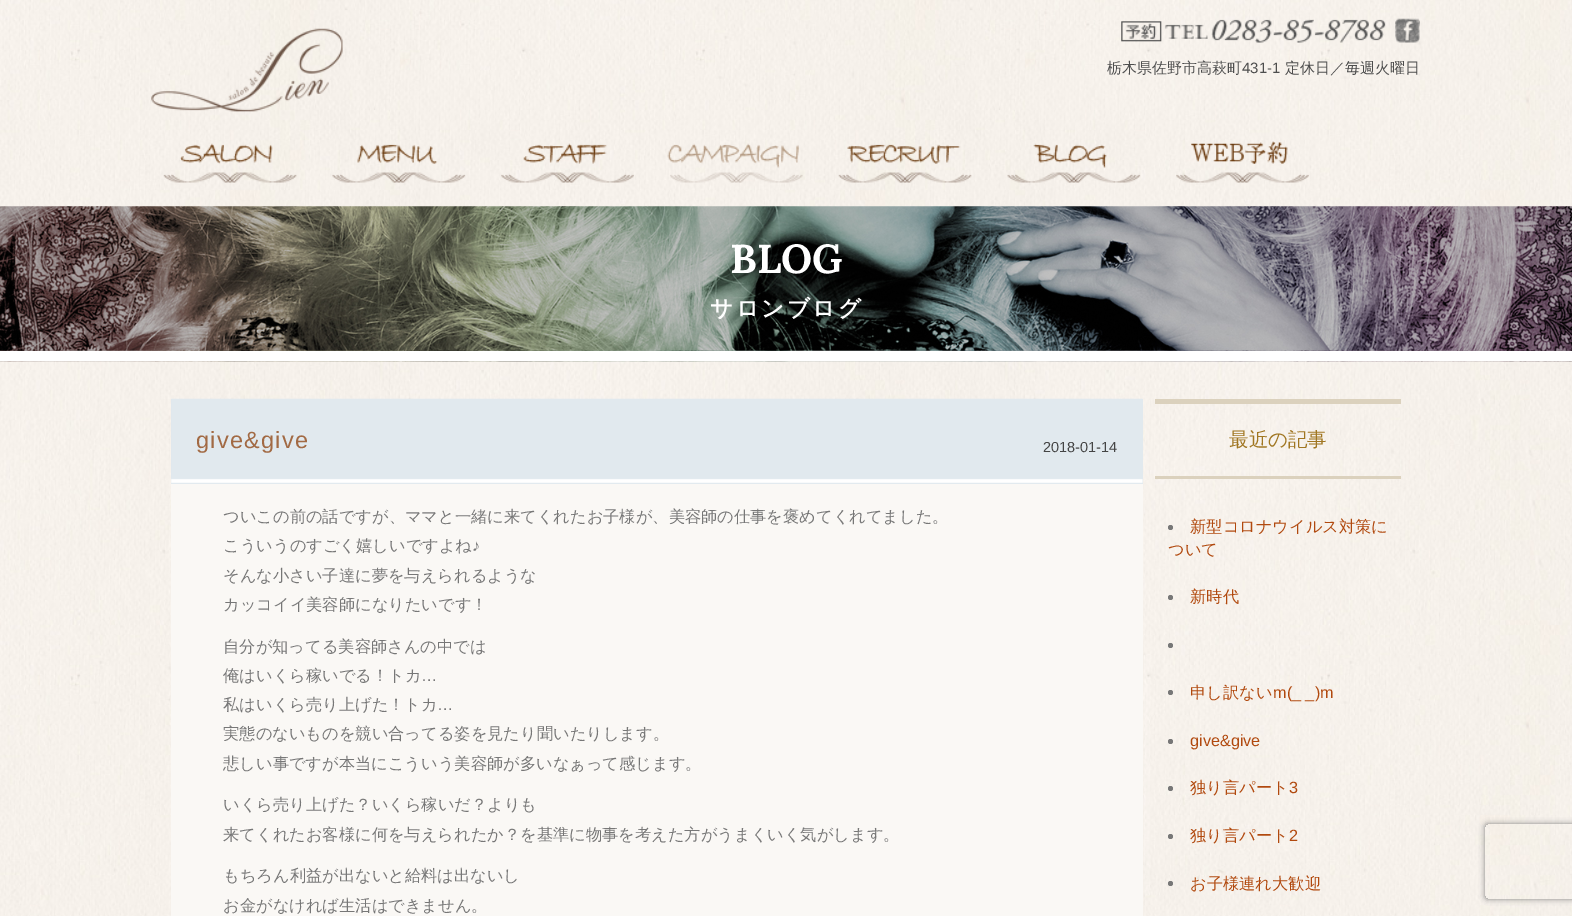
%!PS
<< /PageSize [1572 916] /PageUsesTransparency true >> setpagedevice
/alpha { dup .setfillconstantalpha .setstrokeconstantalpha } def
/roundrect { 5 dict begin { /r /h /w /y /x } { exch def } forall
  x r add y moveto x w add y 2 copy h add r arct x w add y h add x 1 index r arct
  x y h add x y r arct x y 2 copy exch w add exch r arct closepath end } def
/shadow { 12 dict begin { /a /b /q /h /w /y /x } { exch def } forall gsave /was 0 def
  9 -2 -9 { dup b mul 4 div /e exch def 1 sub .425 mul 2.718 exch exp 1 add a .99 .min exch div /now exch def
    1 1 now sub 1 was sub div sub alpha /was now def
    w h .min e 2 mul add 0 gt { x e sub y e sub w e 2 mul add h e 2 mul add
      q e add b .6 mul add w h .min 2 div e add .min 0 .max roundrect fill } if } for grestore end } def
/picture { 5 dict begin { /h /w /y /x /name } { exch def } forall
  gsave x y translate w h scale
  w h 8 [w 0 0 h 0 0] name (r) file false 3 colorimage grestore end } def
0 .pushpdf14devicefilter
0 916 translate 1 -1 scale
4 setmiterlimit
1 setgray
0 0 1572 916 rectfill
(img1.rgb) 0 0 1572 916 picture
(img2.rgb) 151 28 192 84 picture
(img3.rgb) 1121 19 265 24 picture
(img4.rgb) 1395 18 25 25 picture
/WenQuanYiZenHei-Medium [15 0 0 -15 0 0] selectfont
0.302 setgray
1107 73 moveto (栃木県佐野市高萩町) show
/LiberationSans-Regular [15 0 0 -15 0 0] selectfont
1242 73 moveto (431-1) show
/WenQuanYiZenHei-Medium [15 0 0 -15 0 0] selectfont
1285 73 moveto (定休日／毎週火曜日) show
(img5.rgb) 163 143 134 40 picture
(img6.rgb) 332 144 134 39 picture
(img7.rgb) 501 143 133 40 picture
(img8.rgb) 667 143 136 40 picture
(img9.rgb) 838 144 134 39 picture
(img10.rgb) 1007 143 134 40 picture
(img11.rgb) 1176 141 133 42 picture
(img12.rgb) 0 206 1572 156 picture
1 setgray
0 351 1572 10 rectfill
/Lora-Bold [40.5 0 0 -40.5 0 0] selectfont
730 273 moveto (BLOG) show
/WenQuanYiZenHei-Bold [22.5 0 0 -22.5 0 0] selectfont
710 316 moveto 2.5 0 (サロンブログ) ashow
0.1 alpha
1144 654 6 242 rectfill
1 alpha
0.886 0.918 0.937 setrgbcolor
171 399 972 85 rectfill
(img13.rgb) 171 398 972 85 picture
/LiberationSans-Regular [23.5 0 0 -23.5 0 0] selectfont
0.635 0.416 0.267 setrgbcolor
196 448 moveto 1.25 0 (give&give) ashow
/LiberationSans-Regular [14.5 0 0 -14.5 0 0] selectfont
0.267 setgray
1043 452 moveto (2018-01-14) show
0.98 0.973 0.961 setrgbcolor
171 484 972 432 rectfill
/WenQuanYiZenHei-Medium [16.25 0 0 -16.25 0 0] selectfont
0.467 setgray
223 522 moveto (ついこの前の話ですが、ママと一緒に来てくれたお子様が、美容師の仕事を褒めてくれてました。) show
223 551 moveto (こういうのすごく嬉しいですよね) show
/LiberationSans-Regular [16.25 0 0 -16.25 0 0] selectfont
472 551 moveto (♪) show
/WenQuanYiZenHei-Medium [16.25 0 0 -16.25 0 0] selectfont
223 581 moveto (そんな小さい子達に夢を与えられるような) show
223 610 moveto (カッコイイ美容師になりたいです！) show
223 652 moveto (自分が知ってる美容師さんの中では) show
223 681 moveto (俺はいくら稼いでる！トカ) show
/LiberationSans-Regular [16.25 0 0 -16.25 0 0] selectfont
421 681 moveto (…) show
/WenQuanYiZenHei-Medium [16.25 0 0 -16.25 0 0] selectfont
223 710 moveto (私はいくら売り上げた！トカ) show
/LiberationSans-Regular [16.25 0 0 -16.25 0 0] selectfont
437 710 moveto (…) show
/WenQuanYiZenHei-Medium [16.25 0 0 -16.25 0 0] selectfont
223 739 moveto (実態のないものを競い合ってる姿を見たり聞いたりします。) show
223 769 moveto (悲しい事ですが本当にこういう美容師が多いなぁって感じます。) show
223 810 moveto (いくら売り上げた？いくら稼いだ？よりも) show
223 840 moveto (来てくれたお客様に何を与えられたか？を基準に物事を考えた方がうまくいく気がします。) show
223 881 moveto (もちろん利益が出ないと給料は出ないし) show
223 911 moveto (お金がなければ生活はできません。) show
0.859 0.82 0.741 setrgbcolor
1155 399 246 5 rectfill
1155 476 246 3 rectfill
/WenQuanYiZenHei-Medium [19.5 0 0 -19.5 0 0] selectfont
0.627 0.463 0.129 setrgbcolor
1229 446 moveto (最近の記事) show
0.467 setgray
newpath 1170.5 527.5 2.5 0 360 arc closepath fill
/WenQuanYiZenHei-Medium [16.25 0 0 -16.25 0 0] selectfont
0.694 0.286 0.055 setrgbcolor
1190 532 moveto (新型コロナウイルス対策に) show
1168 555 moveto (ついて) show
0.467 setgray
newpath 1170.5 597.5 2.5 0 360 arc closepath fill
0.694 0.286 0.055 setrgbcolor
1190 602 moveto (新時代) show
0.467 setgray
newpath 1170.5 645.5 2.5 0 360 arc closepath fill
newpath 1170.5 692.5 2.5 0 360 arc closepath fill
0.694 0.286 0.055 setrgbcolor
1190 698 moveto (申し訳ない) show
/LiberationSans-Regular [16.25 0 0 -16.25 0 0] selectfont
1273 698 moveto (m\(_ _\)m) show
0.467 setgray
newpath 1170.5 741.5 2.5 0 360 arc closepath fill
0.694 0.286 0.055 setrgbcolor
1190 746 moveto (give&give) show
0.467 setgray
newpath 1170.5 788.5 2.5 0 360 arc closepath fill
/WenQuanYiZenHei-Medium [16.25 0 0 -16.25 0 0] selectfont
0.694 0.286 0.055 setrgbcolor
1190 793 moveto (独り言パート) show
/LiberationSans-Regular [16.25 0 0 -16.25 0 0] selectfont
1289 793 moveto (3) show
0.467 setgray
newpath 1170.5 836.5 2.5 0 360 arc closepath fill
/WenQuanYiZenHei-Medium [16.25 0 0 -16.25 0 0] selectfont
0.694 0.286 0.055 setrgbcolor
1190 841 moveto (独り言パート) show
/LiberationSans-Regular [16.25 0 0 -16.25 0 0] selectfont
1289 841 moveto (2) show
0.467 setgray
newpath 1170.5 883.5 2.5 0 360 arc closepath fill
/WenQuanYiZenHei-Medium [16.25 0 0 -16.25 0 0] selectfont
0.694 0.286 0.055 setrgbcolor
1190 889 moveto (お子様連れ大歓迎) show
gsave
newpath 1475 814 moveto 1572 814 lineto 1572 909 lineto 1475 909 lineto closepath 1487.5 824 moveto 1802.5 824 lineto 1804 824 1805 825 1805 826.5 curveto 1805 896.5 lineto 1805 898 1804 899 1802.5 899 curveto 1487.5 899 lineto 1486 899 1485 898 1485 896.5 curveto 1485 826.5 lineto 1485 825 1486 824 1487.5 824 curveto closepath eoclip newpath
0.502 setgray
1485 824 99 75 2.5 3 1 shadow
grestore
.poppdf14devicefilter showpage
